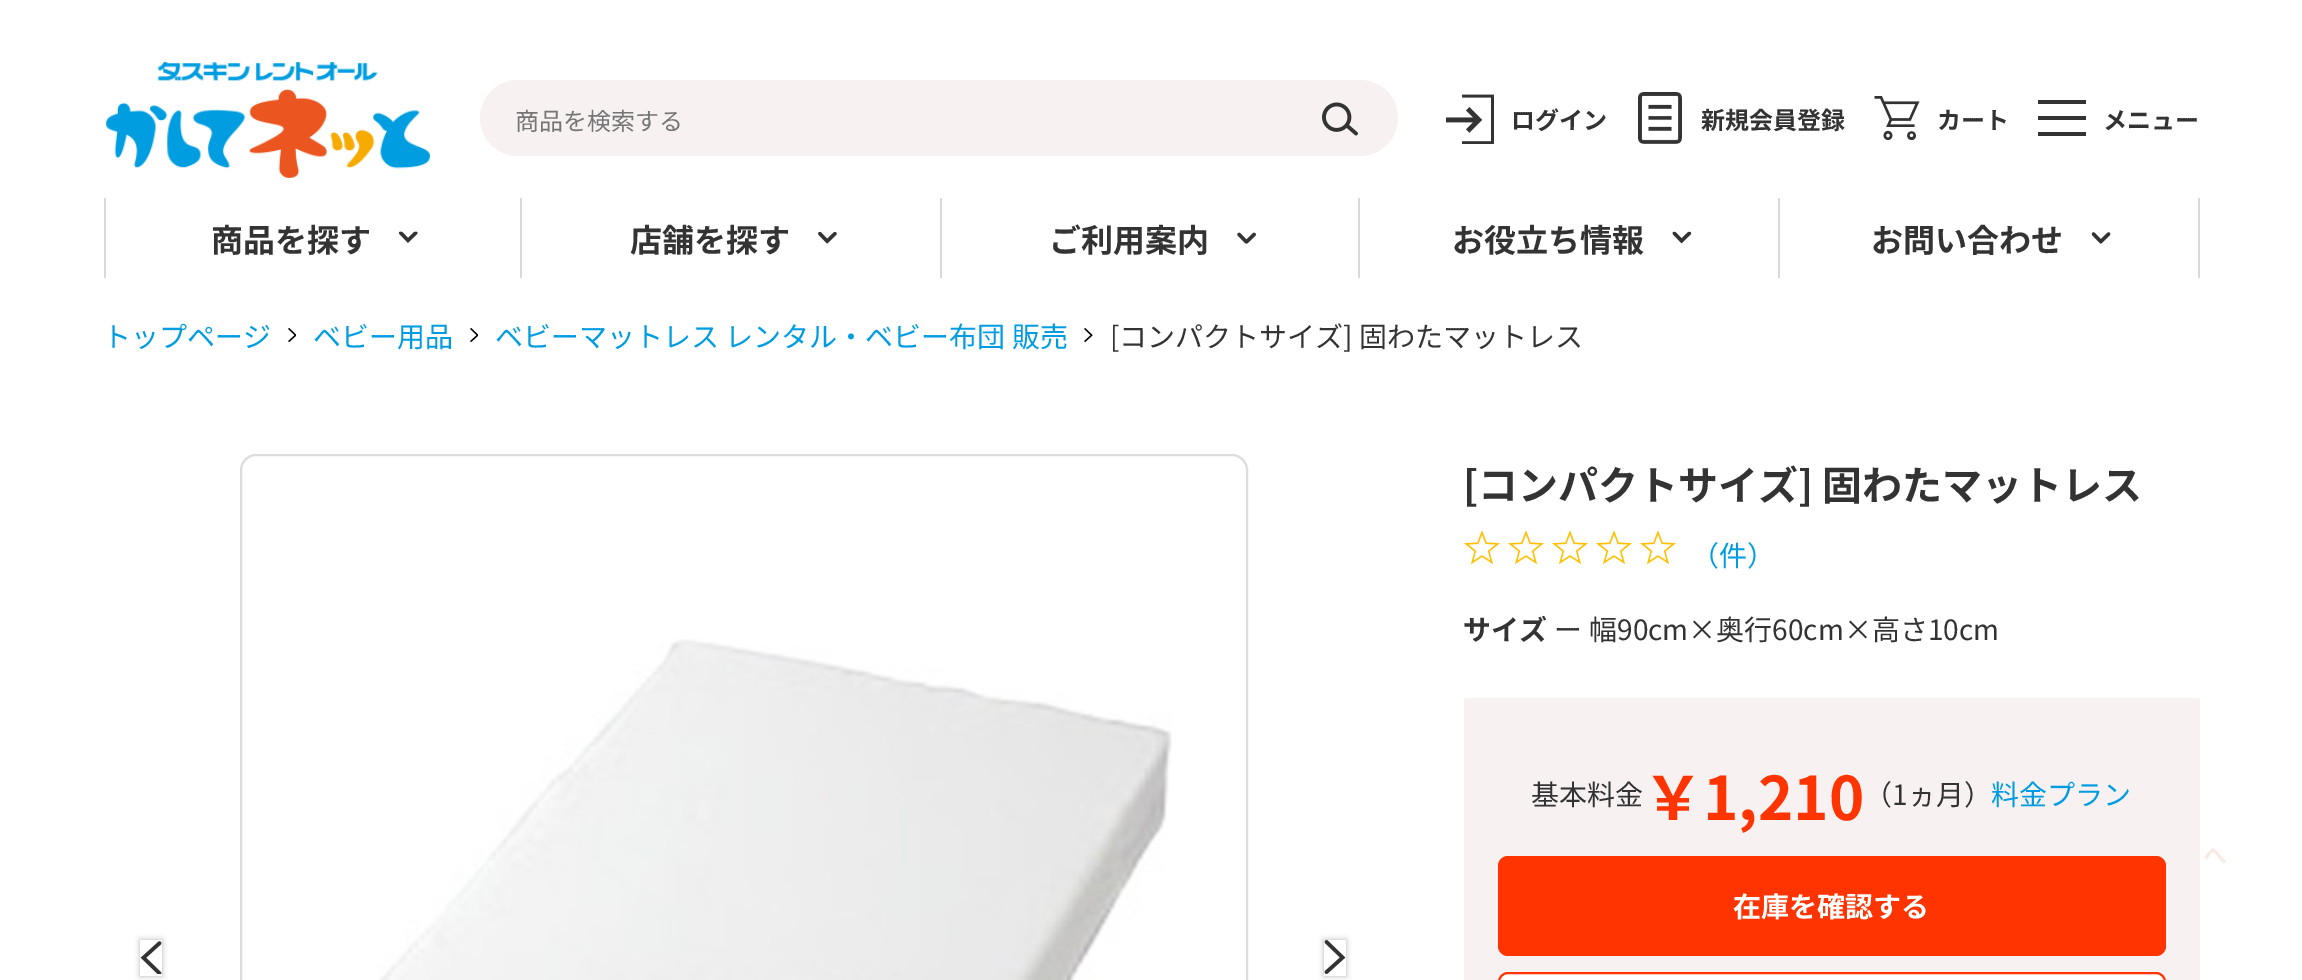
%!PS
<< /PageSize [2302 980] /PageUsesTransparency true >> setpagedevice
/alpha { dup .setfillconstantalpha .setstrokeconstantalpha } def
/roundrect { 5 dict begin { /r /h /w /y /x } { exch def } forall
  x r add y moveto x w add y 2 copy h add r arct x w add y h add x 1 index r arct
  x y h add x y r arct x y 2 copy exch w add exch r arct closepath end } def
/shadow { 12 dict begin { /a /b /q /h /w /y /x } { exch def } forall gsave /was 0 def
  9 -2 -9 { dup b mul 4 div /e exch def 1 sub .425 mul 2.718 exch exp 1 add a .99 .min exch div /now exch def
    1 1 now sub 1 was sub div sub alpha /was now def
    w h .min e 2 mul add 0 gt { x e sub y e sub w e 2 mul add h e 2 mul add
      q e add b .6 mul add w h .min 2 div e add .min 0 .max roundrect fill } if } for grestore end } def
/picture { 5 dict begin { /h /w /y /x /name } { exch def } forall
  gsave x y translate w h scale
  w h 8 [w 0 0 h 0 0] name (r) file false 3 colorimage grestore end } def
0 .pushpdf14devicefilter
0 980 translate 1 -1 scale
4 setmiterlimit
1 setgray
0 0 2302 980 rectfill
(img1.rgb) 106 62 324 116 picture
0.969 0.945 0.949 setrgbcolor
480 80 918 76 38 roundrect fill
/NotoSansJP-Regular [24 0 0 -24 0 0] selectfont
0.459 setgray
515 130 moveto (商品を検索する) show
(img2.rgb) 1322 102 36 34 picture
(img3.rgb) 1446 94 48 50 picture
/NotoSansJP-Bold [24 0 0 -24 0 0] selectfont
0.2 setgray
1511 129 moveto (ログイン) show
(img4.rgb) 1638 92 44 52 picture
1701 129 moveto (新規会員登録) show
(img5.rgb) 1874 96 46 44 picture
1937 129 moveto (カート) show
newpath 2038 136 moveto 2086 136 lineto 2086 132 lineto 2038 132 lineto closepath 2038 120 moveto 2086 120 lineto 2086 116 lineto 2038 116 lineto closepath 2038 104 moveto 2086 104 lineto 2086 100 lineto 2038 100 lineto closepath fill
2103 129 moveto (メニュー) show
0.851 setgray
104 198 2 80 rectfill
/NotoSansJP-Bold [32 0 0 -32 0 0] selectfont
0.2 setgray
211 252 moveto (商品を探す) show
(img6.rgb) 398 231 20 12 picture
0.851 setgray
520 198 2 80 rectfill
0.2 setgray
630 252 moveto (店舗を探す) show
(img7.rgb) 818 231 19 13 picture
0.851 setgray
940 198 2 80 rectfill
0.2 setgray
1049 252 moveto (ご利用案内) show
(img8.rgb) 1237 232 19 12 picture
0.851 setgray
1358 198 2 80 rectfill
0.2 setgray
1452 252 moveto (お役立ち情報) show
(img9.rgb) 1672 231 20 13 picture
0.851 setgray
1778 198 2 80 rectfill
0.2 setgray
1871 252 moveto (お問い合わせ) show
(img10.rgb) 2091 232 20 12 picture
0.851 setgray
2198 198 2 80 rectfill
/NotoSansJP-Regular [28 0 0 -28 0 0] selectfont
0 0.612 0.882 setrgbcolor
103 347 moveto (トップページ) show
(img11.rgb) 288 328 8 14 picture
313 347 moveto (ベビー用品) show
(img11.rgb) 470 328 8 14 picture
495 347 moveto (ベビーマットレス レンタル・ベビー布団 販売) show
(img12.rgb) 1084 328 9 14 picture
0.2 setgray
1110 347 moveto ([コンパクトサイズ] 固わたマットレス) show
gsave
newpath 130 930 moveto 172 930 lineto 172 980 lineto 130 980 lineto closepath 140 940 moveto 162 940 lineto 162 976 lineto 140 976 lineto closepath eoclip newpath
0 setgray
140 940 22 36 0 3 0.3 shadow
grestore
(img13.rgb) 140 941 22 33 picture
(img14.rgb) 379 639 793 341 picture
0.867 setgray
2 setlinewidth
241 455 1006 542 15 roundrect stroke
gsave
newpath 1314 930 moveto 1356 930 lineto 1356 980 lineto 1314 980 lineto closepath 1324 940 moveto 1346 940 lineto 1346 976 lineto 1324 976 lineto closepath eoclip newpath
0 setgray
1324 940 22 36 0 3 0.3 shadow
grestore
(img15.rgb) 1324 940 22 34 picture
/NotoSansJP-Bold [40 0 0 -40 0 0] selectfont
0.2 setgray
1463 500 moveto ([コンパクトサイズ] 固わたマットレス) show
(img16.rgb) 1464 530 36 34 picture
(img16.rgb) 1508 530 36 34 picture
(img16.rgb) 1552 530 36 34 picture
(img16.rgb) 1596 530 36 34 picture
(img16.rgb) 1640 530 36 34 picture
/NotoSansJP-Regular [28 0 0 -28 0 0] selectfont
0 0.612 0.882 setrgbcolor
1691 566 moveto (（件）) show
/NotoSansJP-Bold [28 0 0 -28 0 0] selectfont
0.2 setgray
1463 640 moveto (サイズ) show
/NotoSansJP-Regular [28 0 0 -28 0 0] selectfont
1554 640 moveto (ー) show
1589 640 moveto (幅90cm×奥行60cm×高さ10cm) show
0.969 0.945 0.949 setrgbcolor
1464 698 736 282 rectfill
0.2 setgray
1531 805 moveto (基本料金) show
/NotoSansJP-Bold [60 0 0 -60 0 0] selectfont
1 0.204 0.004 setrgbcolor
1643 820 moveto (￥1,210) show
/NotoSansJP-Regular [28 0 0 -28 0 0] selectfont
0.2 setgray
1864 805 moveto (（1ヵ月）) show
0 0.612 0.882 setrgbcolor
1991 805 moveto (料金プラン) show
1 0.204 0.004 setrgbcolor
1498 856 668 100 10 roundrect fill
/NotoSansJP-Bold [28 0 0 -28 0 0] selectfont
1 setgray
1733 917 moveto (在庫を確認する) show
1500 974 664 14 8 roundrect fill
1 0.204 0.004 setrgbcolor
1499 973 666 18 9 roundrect stroke
/NotoSansJP-Bold [24 0 0 -24 0 0] selectfont
0.976 0.918 0.91 setrgbcolor
2203 864 moveto (へ) show
.poppdf14devicefilter showpage
